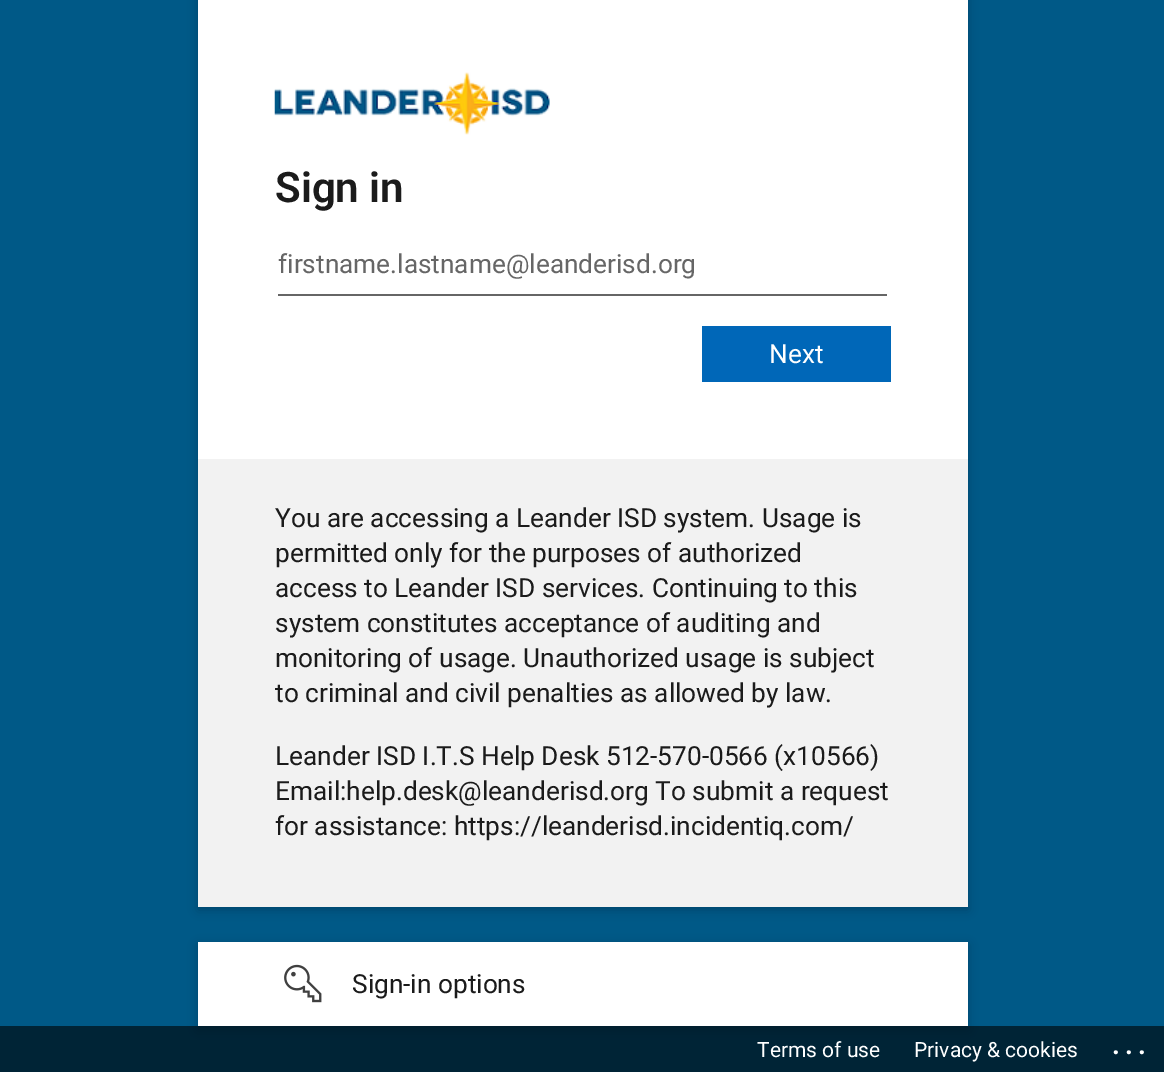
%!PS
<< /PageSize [1164 1072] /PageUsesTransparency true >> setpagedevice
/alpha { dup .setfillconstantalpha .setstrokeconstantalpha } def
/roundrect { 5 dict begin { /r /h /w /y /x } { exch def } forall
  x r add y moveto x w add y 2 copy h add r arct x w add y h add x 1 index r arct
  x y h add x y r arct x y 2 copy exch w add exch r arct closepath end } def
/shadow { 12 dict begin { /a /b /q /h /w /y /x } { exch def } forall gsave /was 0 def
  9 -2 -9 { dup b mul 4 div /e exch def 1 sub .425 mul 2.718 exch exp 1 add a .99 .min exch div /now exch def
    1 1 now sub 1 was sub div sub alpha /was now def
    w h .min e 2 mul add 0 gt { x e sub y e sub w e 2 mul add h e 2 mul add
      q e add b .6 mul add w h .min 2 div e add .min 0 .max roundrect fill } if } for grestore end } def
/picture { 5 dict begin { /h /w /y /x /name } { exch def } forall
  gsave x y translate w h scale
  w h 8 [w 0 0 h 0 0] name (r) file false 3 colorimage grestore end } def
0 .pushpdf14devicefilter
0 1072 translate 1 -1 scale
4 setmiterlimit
0 0.349 0.529 setrgbcolor
0 0 1164 1072 rectfill
0 setgray
198 -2 770 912 0 5 0.2 shadow
1 setgray
198 0 770 459 rectfill
(img1.rgb) 274 72 276 63 picture
/Roboto-SemiBold [42 0 0 -42 0 0] selectfont
0.106 setgray
275 202 moveto (Sign in) show
0.4 setgray
278 294 609 2 rectfill
/Roboto-Regular [26.25 0 0 -26.25 0 0] selectfont
278 273 moveto (firstname.lastname@leanderisd.org) show
0 0.404 0.722 setrgbcolor
702 326 189 56 rectfill
1 setgray
769 363 moveto (Next) show
0.949 setgray
198 459 770 448 rectfill
0.106 setgray
275 527 moveto (You are accessing a Leander ISD system. Usage is) show
275 562 moveto (permitted only for the purposes of authorized) show
275 597 moveto (access to Leander ISD services. Continuing to this) show
275 632 moveto (system constitutes acceptance of auditing and) show
275 667 moveto (monitoring of usage. Unauthorized usage is subject) show
275 702 moveto (to criminal and civil penalties as allowed by law.) show
275 765 moveto (Leander ISD I.T.S Help Desk 512-570-0566 \(x10566\)) show
275 800 moveto (Email:help.desk@leanderisd.org To submit a request) show
275 835 moveto (for assistance: https://leanderisd.incidentiq.com/) show
0 setgray
198 945 770 84 0 5 0.2 shadow
1 setgray
198 942 770 84 rectfill
(img2.rgb) 284 964 38 39 picture
0.106 setgray
352 993 moveto (Sign-in options) show
0.6 alpha
0 setgray
0 1026 1164 46 rectfill
/Roboto-Regular [21 0 0 -21 0 0] selectfont
1 alpha
1 setgray
757 1057 moveto (Terms of use) show
914 1057 moveto (Privacy & cookies) show
/Roboto-SemiBold [28 0 0 -28 0 0] selectfont
1112 1054 moveto 5 0 (...) ashow
.poppdf14devicefilter showpage
